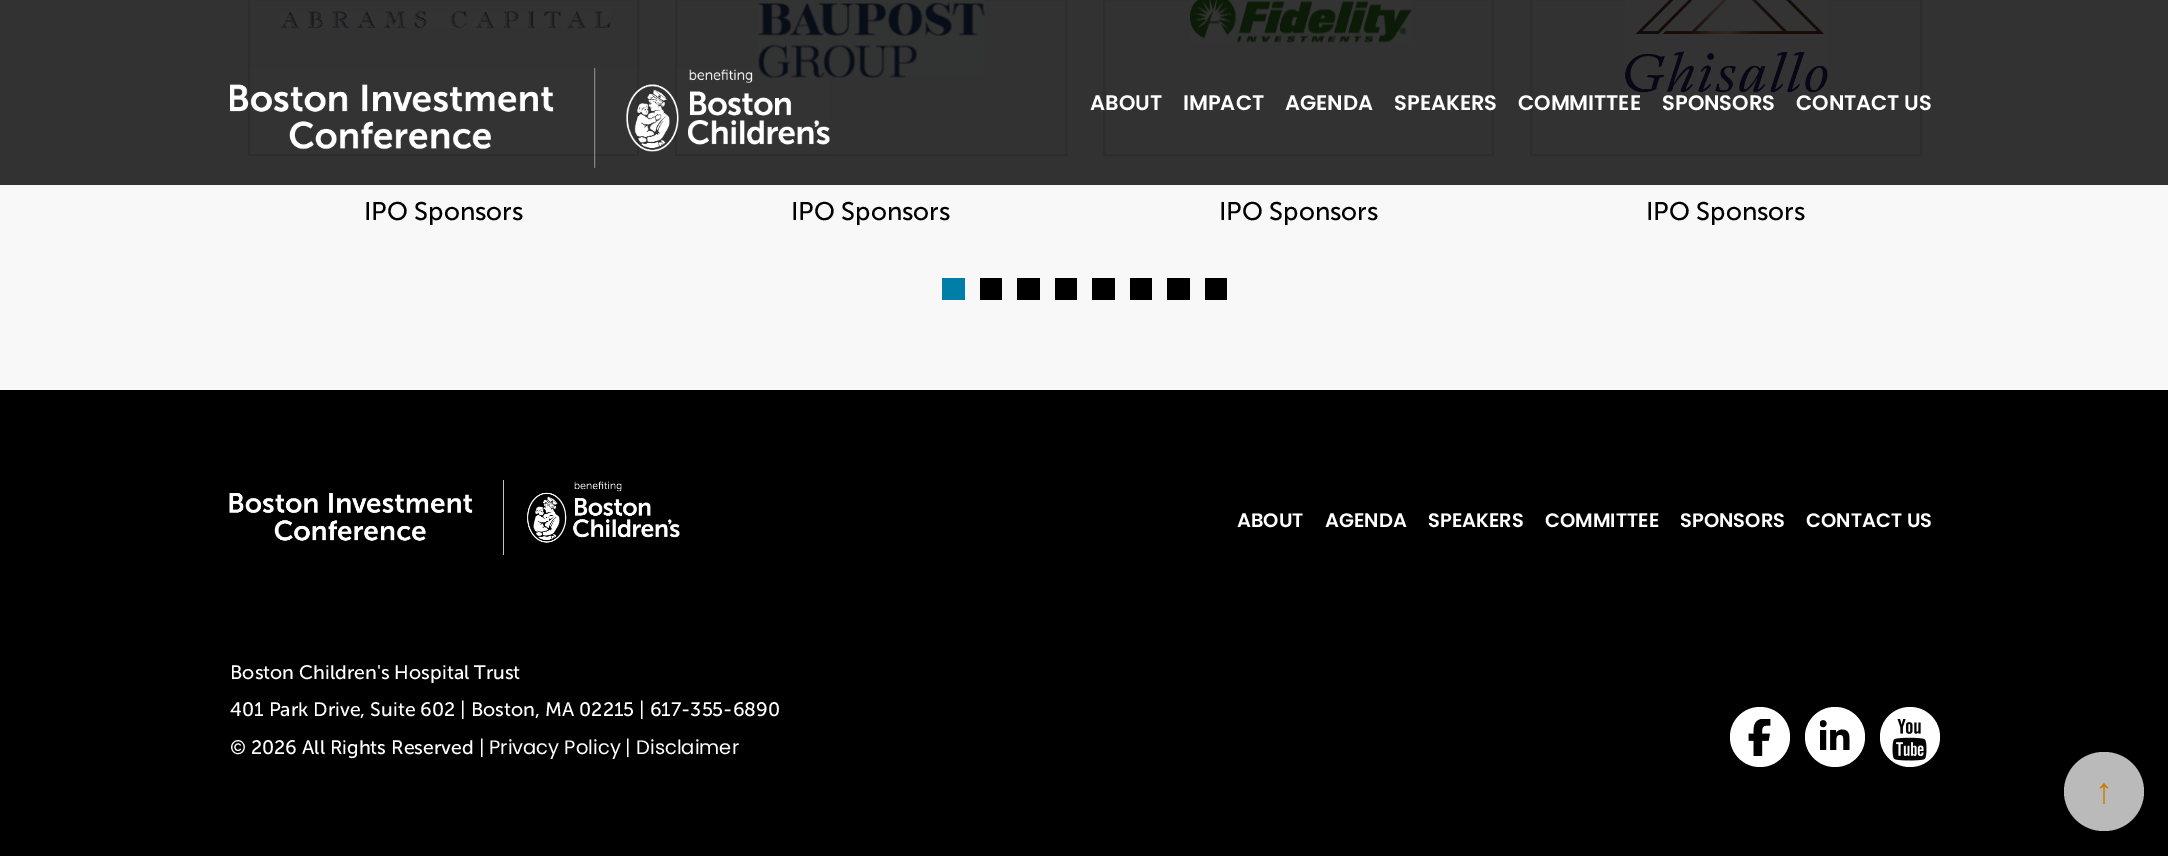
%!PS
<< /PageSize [2168 856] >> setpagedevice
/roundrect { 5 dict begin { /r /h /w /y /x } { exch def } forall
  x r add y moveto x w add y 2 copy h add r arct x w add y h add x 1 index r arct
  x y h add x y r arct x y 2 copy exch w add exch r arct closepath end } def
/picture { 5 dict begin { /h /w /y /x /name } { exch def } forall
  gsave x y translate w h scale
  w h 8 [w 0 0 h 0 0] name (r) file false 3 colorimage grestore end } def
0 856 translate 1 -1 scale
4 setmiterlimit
0 setgray
0 0 2168 856 rectfill
0.196 setgray
0 0 2168 185 rectfill
0.176 setgray
2 setlinewidth
249 -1 389 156 rectstroke
676 -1 390 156 rectstroke
(img3.rgb) 758 0 227 78 picture
(img1.rgb) 230 68 600 100 picture
1104 -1 389 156 rectstroke
/Poppins-SemiBold [21 0 0 -21 0 0] selectfont
1 setgray
1090 110 moveto (ABOUT) show
1183 110 moveto (IMPACT) show
1285 110 moveto (AGENDA) show
1394 110 moveto (SPEAKERS) show
0.176 setgray
1531 -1 390 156 rectstroke
1 setgray
1518 110 moveto (COMMITTEE) show
1662 110 moveto (SPONSORS) show
1796 110 moveto (CONTACT US) show
0.973 setgray
0 185 2168 205 rectfill
(img2.rgb) 280 11 331 17 picture
/MuseoSans-Regular [25.5 0 0 -25.5 0 0] selectfont
0 setgray
364 220 moveto (IPO Sponsors) show
791 220 moveto (IPO Sponsors) show
(img4.rgb) 1190 0 222 43 picture
1219 220 moveto (IPO Sponsors) show
(img5.rgb) 1625 0 203 93 picture
1646 220 moveto (IPO Sponsors) show
0 0.494 0.655 setrgbcolor
942 278 23 22 rectfill
0 setgray
980 278 22 22 rectfill
1017 278 23 22 rectfill
1055 278 22 22 rectfill
1092 278 23 22 rectfill
1130 278 22 22 rectfill
1167 278 23 22 rectfill
1205 278 22 22 rectfill
(img6.rgb) 229 480 451 75 picture
/Poppins-SemiBold [19.5 0 0 -19.5 0 0] selectfont
1 setgray
1237 527 moveto (ABOUT) show
1325 527 moveto (AGENDA) show
1428 527 moveto (SPEAKERS) show
1545 527 moveto (COMMITTEE) show
1680 527 moveto (SPONSORS) show
1806 527 moveto (CONTACT US) show
/MuseoSans-Regular [19.5 0 0 -19.5 0 0] selectfont
230 679 moveto (Boston Children's Hospital Trust) show
230 716 moveto (401 Park Drive, Suite 602 | Boston, MA 02215 | 617-355-6890) show
230 754 moveto (© 2026 All Rights Reserved |) show
/Poppins-Regular [19.5 0 0 -19.5 0 0] selectfont
489 754 moveto (Privacy Policy) show
/MuseoSans-Regular [19.5 0 0 -19.5 0 0] selectfont
625 754 moveto (|) show
/Poppins-Regular [19.5 0 0 -19.5 0 0] selectfont
636 754 moveto (Disclaimer) show
newpath 1760 737 30 0 360 arc closepath fill
(img7.rgb) 1748 719 23 37 picture
newpath 1835 737 30 0 360 arc closepath fill
(img8.rgb) 1820 720 30 30 picture
newpath 1910 737 30 0 360 arc closepath fill
(img9.rgb) 1892 719 35 42 picture
0.729 setgray
2064 752 80 79 39.5 roundrect fill
/LiberationSans-Regular [36 0 0 -36 0 0] selectfont
0.8 0.482 0 setrgbcolor
2095 803 moveto (↑) show
showpage
